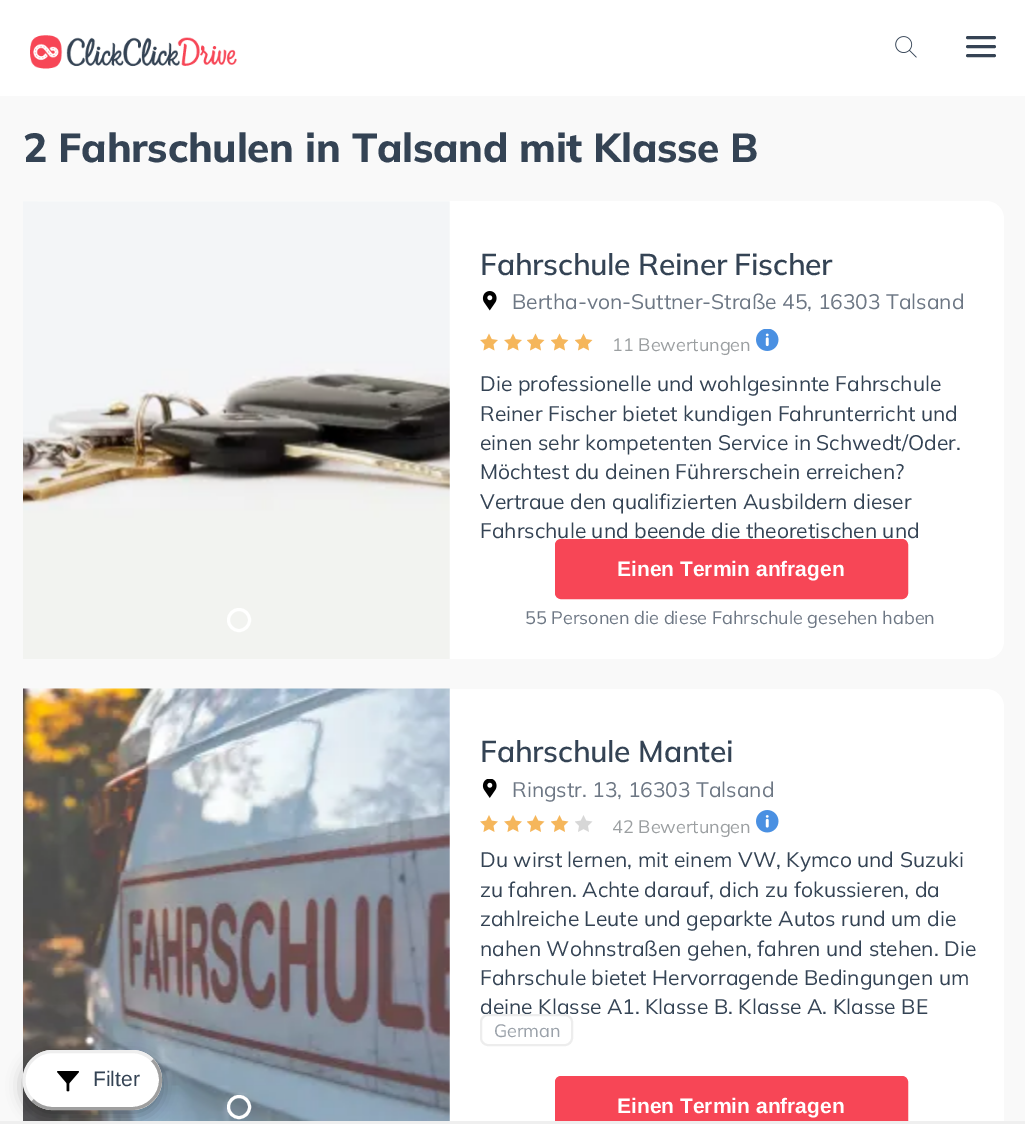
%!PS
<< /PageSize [1025 1124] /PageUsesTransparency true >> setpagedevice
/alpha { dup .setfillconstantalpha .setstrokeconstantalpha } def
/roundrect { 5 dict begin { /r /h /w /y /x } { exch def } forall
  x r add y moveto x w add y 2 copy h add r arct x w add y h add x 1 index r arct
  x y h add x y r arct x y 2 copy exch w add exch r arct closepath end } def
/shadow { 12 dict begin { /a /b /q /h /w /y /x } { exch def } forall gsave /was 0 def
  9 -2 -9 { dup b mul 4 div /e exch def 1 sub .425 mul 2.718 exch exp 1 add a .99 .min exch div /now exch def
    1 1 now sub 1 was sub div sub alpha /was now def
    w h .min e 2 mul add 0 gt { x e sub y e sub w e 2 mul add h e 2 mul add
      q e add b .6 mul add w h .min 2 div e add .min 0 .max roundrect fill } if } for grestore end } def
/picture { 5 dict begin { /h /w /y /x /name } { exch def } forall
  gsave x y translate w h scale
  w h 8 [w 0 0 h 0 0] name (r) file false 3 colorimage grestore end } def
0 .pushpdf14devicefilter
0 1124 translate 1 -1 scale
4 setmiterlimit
1 setgray
0 0 1025 1124 rectfill
(img1.rgb) 30 35 207 34 picture
(img2.rgb) 895 36 22 22 picture
0.208 0.263 0.329 setrgbcolor
3 setlinewidth
1 setlinecap
1 setlinejoin
newpath 967.5 46.5 moveto 994.5 46.5 lineto 967.5 37.5 moveto 994.5 37.5 lineto 967.5 55.5 moveto 994.5 55.5 lineto stroke
0.976 setgray
0 96 1025 1025 rectfill
/Mulish-ExtraBold [40.5 0 0 -40.5 0 0] selectfont
0.204 0.263 0.329 setrgbcolor
23 162 moveto -0.3 0 (2 Fahrschulen in Talsand mit Klasse B) ashow
1 setgray
23 201 981 458 18 roundrect fill
(img3.rgb) 23 201 427 458 picture
0 setlinecap
0 setlinejoin
newpath 239 620 10.5 0 360 arc closepath stroke
/Mulish-SemiBold [30 0 0 -30 0 0] selectfont
0.204 0.263 0.329 setrgbcolor
480 275 moveto -0.3 0 (Fahrschule Reiner Fischer) ashow
(img4.rgb) 482 291 15 20 picture
/Mulish-Regular [21 0 0 -21 0 0] selectfont
0.427 0.467 0.518 setrgbcolor
512 309 moveto (Bertha-von-Suttner-Straße 45, 16303 Talsand) show
(img5.rgb) 480 333 18 18 picture
(img5.rgb) 504 333 18 18 picture
(img6.rgb) 527 333 18 18 picture
(img6.rgb) 551 333 18 18 picture
(img6.rgb) 575 333 18 18 picture
/Mulish-Regular [18 0 0 -18 0 0] selectfont
0.608 0.624 0.631 setrgbcolor
612 351 moveto (11 Bewertungen) show
(img7.rgb) 756 329 23 22 picture
/Mulish-Regular [21 0 0 -21 0 0] selectfont
0.204 0.263 0.329 setrgbcolor
480 391 moveto (Die professionelle und wohlgesinnte Fahrschule) show
480 421 moveto (Reiner Fischer bietet kundigen Fahrunterricht und) show
480 450 moveto (einen sehr kompetenten Service in Schwedt/Oder.) show
480 479 moveto (Möchtest du deinen Führerschein erreichen?) show
480 509 moveto (Vertraue den qualifizierten Ausbildern dieser) show
480 538 moveto (Fahrschule und beende die theoretischen und) show
0.969 0.275 0.337 setrgbcolor
556 540 351 58 5 roundrect gsave fill grestore
2 setlinewidth
stroke
/LiberationSans-Bold [21 0 0 -21 0 0] selectfont
1 setgray
617 576 moveto (Einen Termin anfragen) show
/Mulish-Regular [18 0 0 -18 0 0] selectfont
0.427 0.467 0.518 setrgbcolor
525 624 moveto (55 Personen die diese Fahrschule gesehen haben) show
1 setgray
23 689 981 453 18 roundrect fill
(img8.rgb) 23 688 427 433 picture
3 setlinewidth
newpath 239 1107 10.5 0 360 arc closepath stroke
/Mulish-SemiBold [30 0 0 -30 0 0] selectfont
0.204 0.263 0.329 setrgbcolor
480 762 moveto -0.3 0 (Fahrschule Mantei) ashow
(img9.rgb) 482 779 15 19 picture
/Mulish-Regular [21 0 0 -21 0 0] selectfont
0.427 0.467 0.518 setrgbcolor
512 797 moveto (Ringstr. 13, 16303 Talsand) show
(img10.rgb) 480 815 18 17 picture
(img10.rgb) 504 815 18 17 picture
(img11.rgb) 527 815 18 17 picture
(img11.rgb) 551 815 18 17 picture
(img12.rgb) 575 815 18 17 picture
/Mulish-Regular [18 0 0 -18 0 0] selectfont
0.608 0.624 0.631 setrgbcolor
612 833 moveto (42 Bewertungen) show
(img13.rgb) 756 810 23 23 picture
/Mulish-Regular [21 0 0 -21 0 0] selectfont
0.204 0.263 0.329 setrgbcolor
480 867 moveto (Du wirst lernen, mit einem VW, Kymco und Suzuki) show
480 897 moveto (zu fahren. Achte darauf, dich zu fokussieren, da) show
480 926 moveto (zahlreiche Leute und geparkte Autos rund um die) show
480 956 moveto (nahen Wohnstraßen gehen, fahren und stehen. Die) show
480 985 moveto (Fahrschule bietet Hervorragende Bedingungen um) show
gsave
480 846 501 168 rectclip
480 1014 moveto (deine Klasse A1, Klasse B, Klasse A, Klasse BE) show
grestore
0.929 setgray
2 setlinewidth
481 1015 91 30 7 roundrect stroke
/Mulish-Regular [18 0 0 -18 0 0] selectfont
0.604 0.631 0.663 setrgbcolor
494 1037 moveto (German) show
0.969 0.275 0.337 setrgbcolor
556 1077 351 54 5 roundrect gsave fill grestore
stroke
/LiberationSans-Bold [21 0 0 -21 0 0] selectfont
1 setgray
617 1113 moveto (Einen Termin anfragen) show
0 setgray
23 1056 139 60 30 8 0.3 shadow
1 setgray
23 1050 139 60 30 roundrect fill
0.624 setgray
3 setlinewidth
newpath 152 1060 moveto 157.5 1065 160.5 1072.5 160.5 1080 curveto 160.5 1087.5 157.5 1095 152 1100 curveto 147 1105.5 139.5 1108.5 132 1108.5 curveto 52.5 1108.5 lineto 45 1108.5 37.5 1105.5 32.5 1100 curveto stroke
0.933 setgray
newpath 32.5 1100 moveto 27 1095 24 1087.5 24 1080 curveto 24 1072.5 27 1065 32.5 1060 curveto 37.5 1054.5 45 1051.5 52.5 1051.5 curveto 132 1051.5 lineto 139.5 1051.5 147 1054.5 152 1060 curveto stroke
(img14.rgb) 57 1071 22 21 picture
/LiberationSans-Regular [21 0 0 -21 0 0] selectfont
0.204 0.263 0.329 setrgbcolor
93 1086 moveto (Filter) show
0.937 setgray
0 1121 1025 3 rectfill
.poppdf14devicefilter showpage
